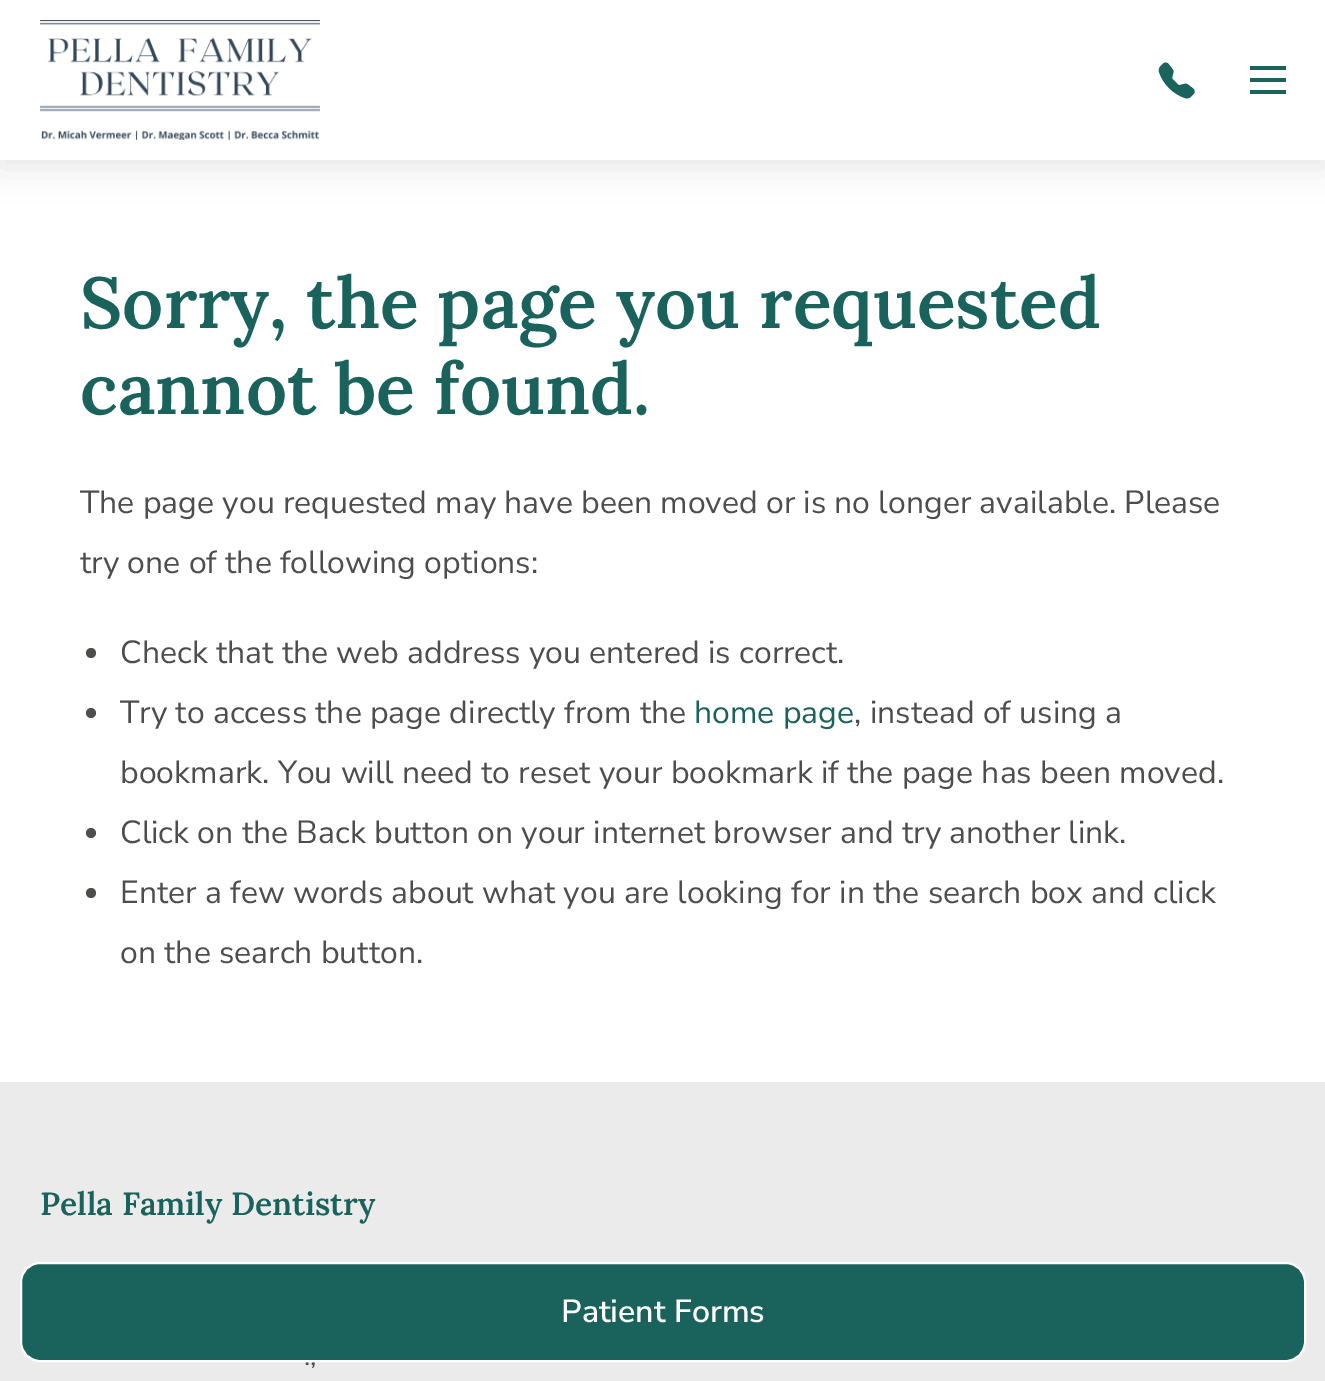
%!PS
<< /PageSize [1325 1381] /PageUsesTransparency true >> setpagedevice
/alpha { dup .setfillconstantalpha .setstrokeconstantalpha } def
/roundrect { 5 dict begin { /r /h /w /y /x } { exch def } forall
  x r add y moveto x w add y 2 copy h add r arct x w add y h add x 1 index r arct
  x y h add x y r arct x y 2 copy exch w add exch r arct closepath end } def
/shadow { 12 dict begin { /a /b /q /h /w /y /x } { exch def } forall gsave /was 0 def
  9 -2 -9 { dup b mul 4 div /e exch def 1 sub .425 mul 2.718 exch exp 1 add a .99 .min exch div /now exch def
    1 1 now sub 1 was sub div sub alpha /was now def
    w h .min e 2 mul add 0 gt { x e sub y e sub w e 2 mul add h e 2 mul add
      q e add b .6 mul add w h .min 2 div e add .min 0 .max roundrect fill } if } for grestore end } def
/picture { 5 dict begin { /h /w /y /x /name } { exch def } forall
  gsave x y translate w h scale
  w h 8 [w 0 0 h 0 0] name (r) file false 3 colorimage grestore end } def
0 .pushpdf14devicefilter
0 1381 translate 1 -1 scale
4 setmiterlimit
1 setgray
0 0 1325 1381 rectfill
/Lora-SemiBold [72 0 0 -72 0 0] selectfont
0.102 0.384 0.361 setrgbcolor
80 328 moveto (Sorry, the page you requested) show
80 414 moveto (cannot be found.) show
/NunitoSans-Regular [32 0 0 -32 0 0] selectfont
0.306 0.302 0.298 setrgbcolor
80 513 moveto (The page you requested may have been moved or is no longer available. Please) show
80 573 moveto (try one of the following options:) show
newpath 91 653 5 0 360 arc closepath fill
120 663 moveto (Check that the web address you entered is correct.) show
newpath 91 713 5 0 360 arc closepath fill
120 723 moveto (Try to access the page directly from the) show
0.102 0.384 0.361 setrgbcolor
694 723 moveto (home page) show
0.306 0.302 0.298 setrgbcolor
854 723 moveto (, instead of using a) show
120 783 moveto (bookmark. You will need to reset your bookmark if the page has been moved.) show
newpath 91 833 5 0 360 arc closepath fill
120 843 moveto (Click on the Back button on your internet browser and try another link.) show
newpath 91 893 5 0 360 arc closepath fill
120 903 moveto (Enter a few words about what you are looking for in the search box and click) show
120 963 moveto (on the search button.) show
0.922 setgray
0 1082 1325 299 rectfill
/Lora-SemiBold [32 0 0 -32 0 0] selectfont
0.102 0.384 0.361 setrgbcolor
40 1215 moveto (Pella Family Dentistry) show
/NunitoSans-Regular [28 0 0 -28 0 0] selectfont
0.306 0.302 0.298 setrgbcolor
304 1365 moveto (.,) show
0 setgray
0 8 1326 160 0 16 0.1 shadow
1 setgray
0 0 1325 160 rectfill
(img1.rgb) 40 20 280 120 picture
(img2.rgb) 1158 62 37 37 picture
0.102 0.384 0.361 setrgbcolor
1250 78 36 4 rectfill
1250 66 36 4 rectfill
1250 90 36 4 rectfill
21 1263 1284 98 19 roundrect gsave fill grestore
1 setgray
2 setlinewidth
stroke
/NunitoSans-SemiBold [32 0 0 -32 0 0] selectfont
561 1322 moveto (Patient Forms) show
.poppdf14devicefilter showpage
